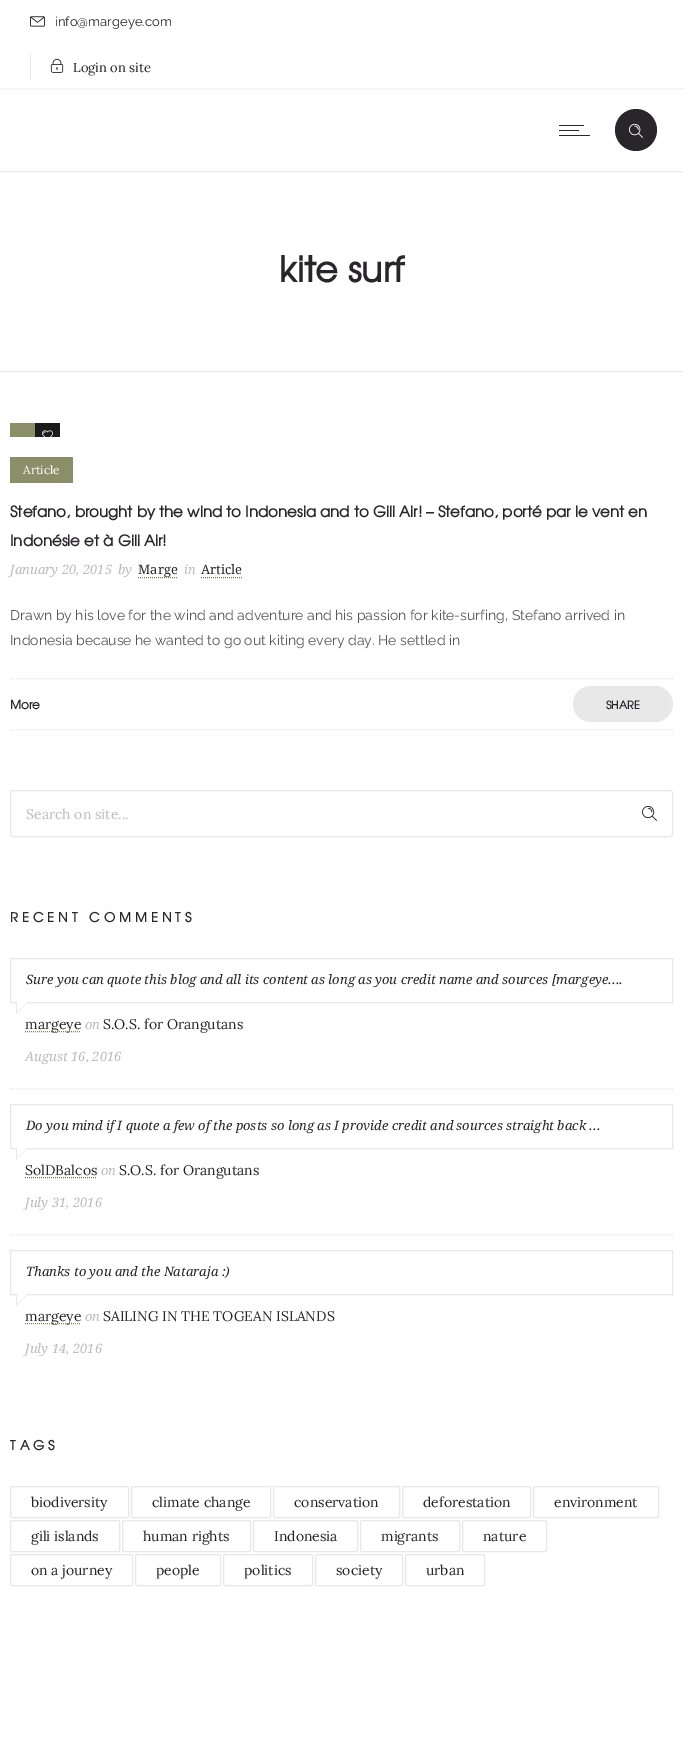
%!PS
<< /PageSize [683 1739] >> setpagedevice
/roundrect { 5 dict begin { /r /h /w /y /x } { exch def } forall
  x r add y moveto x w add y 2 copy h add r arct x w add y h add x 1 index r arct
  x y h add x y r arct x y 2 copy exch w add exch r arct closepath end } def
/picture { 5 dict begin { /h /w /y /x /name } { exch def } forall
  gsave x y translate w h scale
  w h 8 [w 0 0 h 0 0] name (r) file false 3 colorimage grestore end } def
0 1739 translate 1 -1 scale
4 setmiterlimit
1 setgray
0 0 683 1739 rectfill
0.918 0.914 0.918 setrgbcolor
0 171 683 1 rectfill
[1 1] 0 setdash
newpath 0 88.5 moveto 683 88.5 lineto stroke
(img1.rgb) 30 16 15 11 picture
/Raleway-Regular [13 0 0 -13 0 0] selectfont
0.157 0.149 0.169 setrgbcolor
55 26 moveto (info@margeye.com) show
0.91 setgray
30 52 1 28 rectfill
(img2.rgb) 50 58 14 15 picture
/Lora-Regular [13 0 0 -13 0 0] selectfont
0.157 0.149 0.169 setrgbcolor
73 72 moveto (Login on site) show
559 125 25 1 rectfill
559 130 20 1 rectfill
559 135 31 1 rectfill
newpath 636 130 21 0 360 arc closepath fill
(img3.rgb) 629 123 14 15 picture
/TeXGyreAdventor-Bold [35 0 0 -35 0 0] selectfont
279 282 moveto (kite surf) show
0.91 setgray
0 371 683 1 rectfill
0.541 0.561 0.416 setrgbcolor
10 423 25 14 rectfill
0.106 setgray
35 423 25 14 rectfill
(img4.rgb) 42 430 11 7 picture
0.541 0.561 0.416 setrgbcolor
10 457 63 26 rectfill
/Lora-Regular [12 0 0 -12 0 0] selectfont
1 setgray
23 474 moveto (Article) show
/TeXGyreAdventor-Bold [15 0 0 -15 0 0] selectfont
0.157 0.149 0.169 setrgbcolor
10 517 moveto (Stefano, brought by the wind to Indonesia and to Gili Air! – Stefano, porté par le vent en) show
10 546 moveto (Indonésie et à Gili Air!) show
/DroidSerif-Italic [13 0 0 -13 0 0] selectfont
0.737 setgray
10 574 moveto (January 20, 2015) show
118 574 moveto (by) show
/DroidSerif-Regular [13 0 0 -13 0 0] selectfont
0.157 0.149 0.169 setrgbcolor
138 574 moveto (Marge) show
0.486 0.502 0.373 setrgbcolor
newpath 138 577.5 moveto 178 577.5 lineto stroke
/DroidSerif-Italic [13 0 0 -13 0 0] selectfont
0.737 setgray
184 574 moveto (in) show
/DroidSerif-Regular [13 0 0 -13 0 0] selectfont
0.157 0.149 0.169 setrgbcolor
201 574 moveto (Article) show
0.486 0.502 0.373 setrgbcolor
newpath 201 577.5 moveto 243 577.5 lineto stroke
/Raleway-Regular [14 0 0 -14 0 0] selectfont
0.337 setgray
10 620 moveto (Drawn by his love for the wind and adventure and his passion for kite-surfing, Stefano arrived in) show
10 645 moveto (Indonesia because he wanted to go out kiting every day. He settled in) show
0.91 setgray
newpath 10 678.5 moveto 673 678.5 lineto stroke
newpath 10 729.5 moveto 673 729.5 lineto stroke
/TeXGyreAdventor-Bold [12 0 0 -12 0 0] selectfont
0.157 0.149 0.169 setrgbcolor
10 709 moveto (More) show
0.91 setgray
573 686 100 36 18 roundrect fill
/TeXGyreAdventor-Bold [11 0 0 -11 0 0] selectfont
0.157 0.149 0.169 setrgbcolor
606 709 moveto (SHARE) show
0.91 setgray
[] 0 setdash
10.5 790.5 662 46 2.5 roundrect stroke
/Lora-Regular [14 0 0 -14 0 0] selectfont
0.737 setgray
26 819 moveto (Search on site...) show
(img5.rgb) 642 805 15 16 picture
/TeXGyreAdventor-Bold [13 0 0 -13 0 0] selectfont
0.157 0.149 0.169 setrgbcolor
10 922 moveto 4 0 (RECENT COMMENTS) ashow
0.91 setgray
[1 1] 0 setdash
newpath 10 1088.5 moveto 673 1088.5 lineto stroke
[] 0 setdash
10.5 958.5 662 44 rectstroke
/DroidSerif-Italic [13 0 0 -13 0 0] selectfont
0.157 0.149 0.169 setrgbcolor
26 984 moveto (Sure you can quote this blog and all its content as long as you credit name and sources [margeye....) show
0.91 setgray
newpath 16 1002 moveto 28 1002 lineto 16 1014 lineto closepath fill
1 setgray
newpath 17 1002 moveto 27 1002 lineto 17 1012 lineto closepath fill
/Lora-Regular [14 0 0 -14 0 0] selectfont
0.141 setgray
25 1029 moveto (margeye) show
0.486 0.502 0.373 setrgbcolor
[1 1] 0 setdash
newpath 25 1031.5 moveto 81 1031.5 lineto stroke
/DroidSerif-Italic [13 0 0 -13 0 0] selectfont
0.737 setgray
85 1029 moveto (on) show
/Lora-Regular [14 0 0 -14 0 0] selectfont
0.141 setgray
103 1029 moveto (S.O.S. for Orangutans) show
/DroidSerif-Italic [13 0 0 -13 0 0] selectfont
0.737 setgray
25 1061 moveto (August 16, 2016) show
0.91 setgray
newpath 10 1234.5 moveto 673 1234.5 lineto stroke
[] 0 setdash
10.5 1104.5 662 44 rectstroke
0.157 0.149 0.169 setrgbcolor
26 1130 moveto (Do you mind if I quote a few of the posts so long as I provide credit and sources straight back ...) show
0.91 setgray
newpath 16 1148 moveto 28 1148 lineto 16 1160 lineto closepath fill
1 setgray
newpath 17 1148 moveto 27 1148 lineto 17 1158 lineto closepath fill
/Lora-Regular [14 0 0 -14 0 0] selectfont
0.141 setgray
25 1175 moveto (SolDBalcos) show
0.486 0.502 0.373 setrgbcolor
[1 1] 0 setdash
newpath 25 1177.5 moveto 97 1177.5 lineto stroke
/DroidSerif-Italic [13 0 0 -13 0 0] selectfont
0.737 setgray
101 1175 moveto (on) show
/Lora-Regular [14 0 0 -14 0 0] selectfont
0.141 setgray
119 1175 moveto (S.O.S. for Orangutans) show
/DroidSerif-Italic [13 0 0 -13 0 0] selectfont
0.737 setgray
25 1207 moveto (July 31, 2016) show
0.91 setgray
[] 0 setdash
10.5 1250.5 662 44 rectstroke
0.157 0.149 0.169 setrgbcolor
26 1276 moveto (Thanks to you and the Nataraja :\)) show
0.91 setgray
newpath 16 1294 moveto 28 1294 lineto 16 1306 lineto closepath fill
1 setgray
newpath 17 1294 moveto 27 1294 lineto 17 1304 lineto closepath fill
/Lora-Regular [14 0 0 -14 0 0] selectfont
0.141 setgray
25 1321 moveto (margeye) show
0.486 0.502 0.373 setrgbcolor
[1 1] 0 setdash
newpath 25 1323.5 moveto 81 1323.5 lineto stroke
/DroidSerif-Italic [13 0 0 -13 0 0] selectfont
0.737 setgray
85 1321 moveto (on) show
/Lora-Regular [14 0 0 -14 0 0] selectfont
0.141 setgray
103 1321 moveto (SAILING IN THE TOGEAN ISLANDS) show
/DroidSerif-Italic [13 0 0 -13 0 0] selectfont
0.737 setgray
25 1353 moveto (July 14, 2016) show
/TeXGyreAdventor-Bold [13 0 0 -13 0 0] selectfont
0.157 0.149 0.169 setrgbcolor
10 1450 moveto 4 0 (TAGS) ashow
0.91 setgray
[] 0 setdash
10.5 1486.5 118 31 1.5 roundrect stroke
/Lora-Regular [14 0 0 -14 0 0] selectfont
0.141 setgray
31 1507 moveto (biodiversity) show
0.91 setgray
131.5 1486.5 139 31 1.5 roundrect stroke
0.141 setgray
152 1507 moveto (climate change) show
0.91 setgray
273.5 1486.5 126 31 1.5 roundrect stroke
0.141 setgray
294 1507 moveto (conservation) show
0.91 setgray
402.5 1486.5 128 31 1.5 roundrect stroke
0.141 setgray
423 1507 moveto (deforestation) show
0.91 setgray
533.5 1486.5 125 31 1.5 roundrect stroke
0.141 setgray
554 1507 moveto (environment) show
0.91 setgray
10.5 1520.5 109 31 1.5 roundrect stroke
0.141 setgray
31 1541 moveto (gili islands) show
0.91 setgray
122.5 1520.5 128 31 1.5 roundrect stroke
0.141 setgray
143 1541 moveto (human rights) show
0.91 setgray
253.5 1520.5 104 31 1.5 roundrect stroke
0.141 setgray
274 1541 moveto (Indonesia) show
0.91 setgray
360.5 1520.5 99 31 1.5 roundrect stroke
0.141 setgray
381 1541 moveto (migrants) show
0.91 setgray
462.5 1520.5 84 31 1.5 roundrect stroke
0.141 setgray
483 1541 moveto (nature) show
0.91 setgray
10.5 1554.5 122 31 1.5 roundrect stroke
0.141 setgray
31 1575 moveto (on a journey) show
0.91 setgray
135.5 1554.5 85 31 1.5 roundrect stroke
0.141 setgray
156 1575 moveto (people) show
0.91 setgray
223.5 1554.5 89 31 1.5 roundrect stroke
0.141 setgray
244 1575 moveto (politics) show
0.91 setgray
315.5 1554.5 87 31 1.5 roundrect stroke
0.141 setgray
336 1575 moveto (society) show
0.91 setgray
405.5 1554.5 79 31 1.5 roundrect stroke
0.141 setgray
426 1575 moveto (urban) show
showpage
